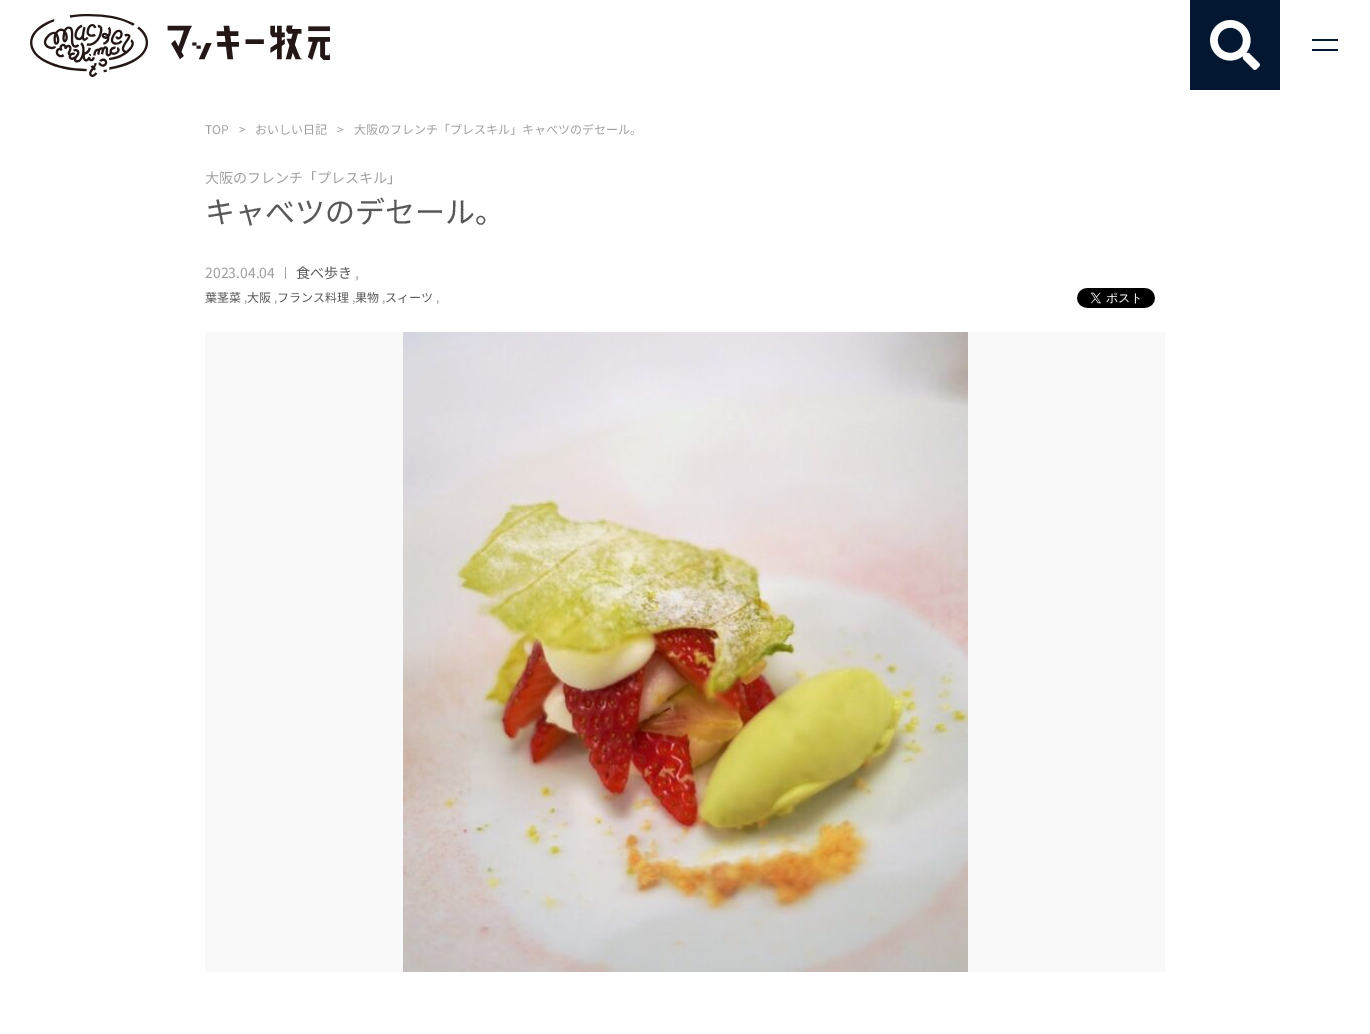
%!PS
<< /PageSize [1370 1034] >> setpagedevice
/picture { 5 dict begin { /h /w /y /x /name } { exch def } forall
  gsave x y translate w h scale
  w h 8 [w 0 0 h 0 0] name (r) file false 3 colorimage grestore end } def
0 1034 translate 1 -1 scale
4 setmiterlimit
1 setgray
0 0 1370 1034 rectfill
(img1.rgb) 30 14 300 63 picture
0.012 0.09 0.192 setrgbcolor
1190 0 90 90 rectfill
(img2.rgb) 1210 20 50 50 picture
1312 39 26 2 rectfill
1312 49 26 2 rectfill
/NotoSansJP-Regular [12 0 0 -12 0 0] selectfont
0.624 0.627 0.627 setrgbcolor
205 134 moveto (TOP) show
239 134 moveto (>) show
255 134 moveto (おいしい日記) show
337 134 moveto (>) show
354 134 moveto (大阪のフレンチ「プレスキル」キャべツのデセール。) show
/NotoSansJP-Regular [14 0 0 -14 0 0] selectfont
205 183 moveto (大阪のフレンチ「プレスキル」) show
/NotoSansJP-Regular [30 0 0 -30 0 0] selectfont
0.349 0.341 0.341 setrgbcolor
205 223 moveto (キャべツのデセール。) show
/NotoSansJP-Regular [14 0 0 -14 0 0] selectfont
0.624 0.627 0.627 setrgbcolor
205 278 moveto (2023.04.04) show
285 267 1 12 rectfill
0.349 0.341 0.341 setrgbcolor
296 278 moveto (食べ歩き) show
0.624 0.627 0.627 setrgbcolor
355 278 moveto (,) show
/NotoSansJP-Regular [12 0 0 -12 0 0] selectfont
0.349 0.341 0.341 setrgbcolor
205 302 moveto (葉茎菜) show
0.624 0.627 0.627 setrgbcolor
244 302 moveto (,) show
0.349 0.341 0.341 setrgbcolor
247 302 moveto (大阪) show
0.624 0.627 0.627 setrgbcolor
274 302 moveto (,) show
0.349 0.341 0.341 setrgbcolor
277 302 moveto (フランス料理) show
0.624 0.627 0.627 setrgbcolor
352 302 moveto (,) show
0.349 0.341 0.341 setrgbcolor
355 302 moveto (果物) show
0.624 0.627 0.627 setrgbcolor
382 302 moveto (,) show
0.349 0.341 0.341 setrgbcolor
385 302 moveto (スィーツ) show
0.624 0.627 0.627 setrgbcolor
436 302 moveto (,) show
(img3.rgb) 1077 288 78 20 picture
0.976 setgray
205 332 960 640 rectfill
(img4.rgb) 403 332 565 640 picture
showpage
